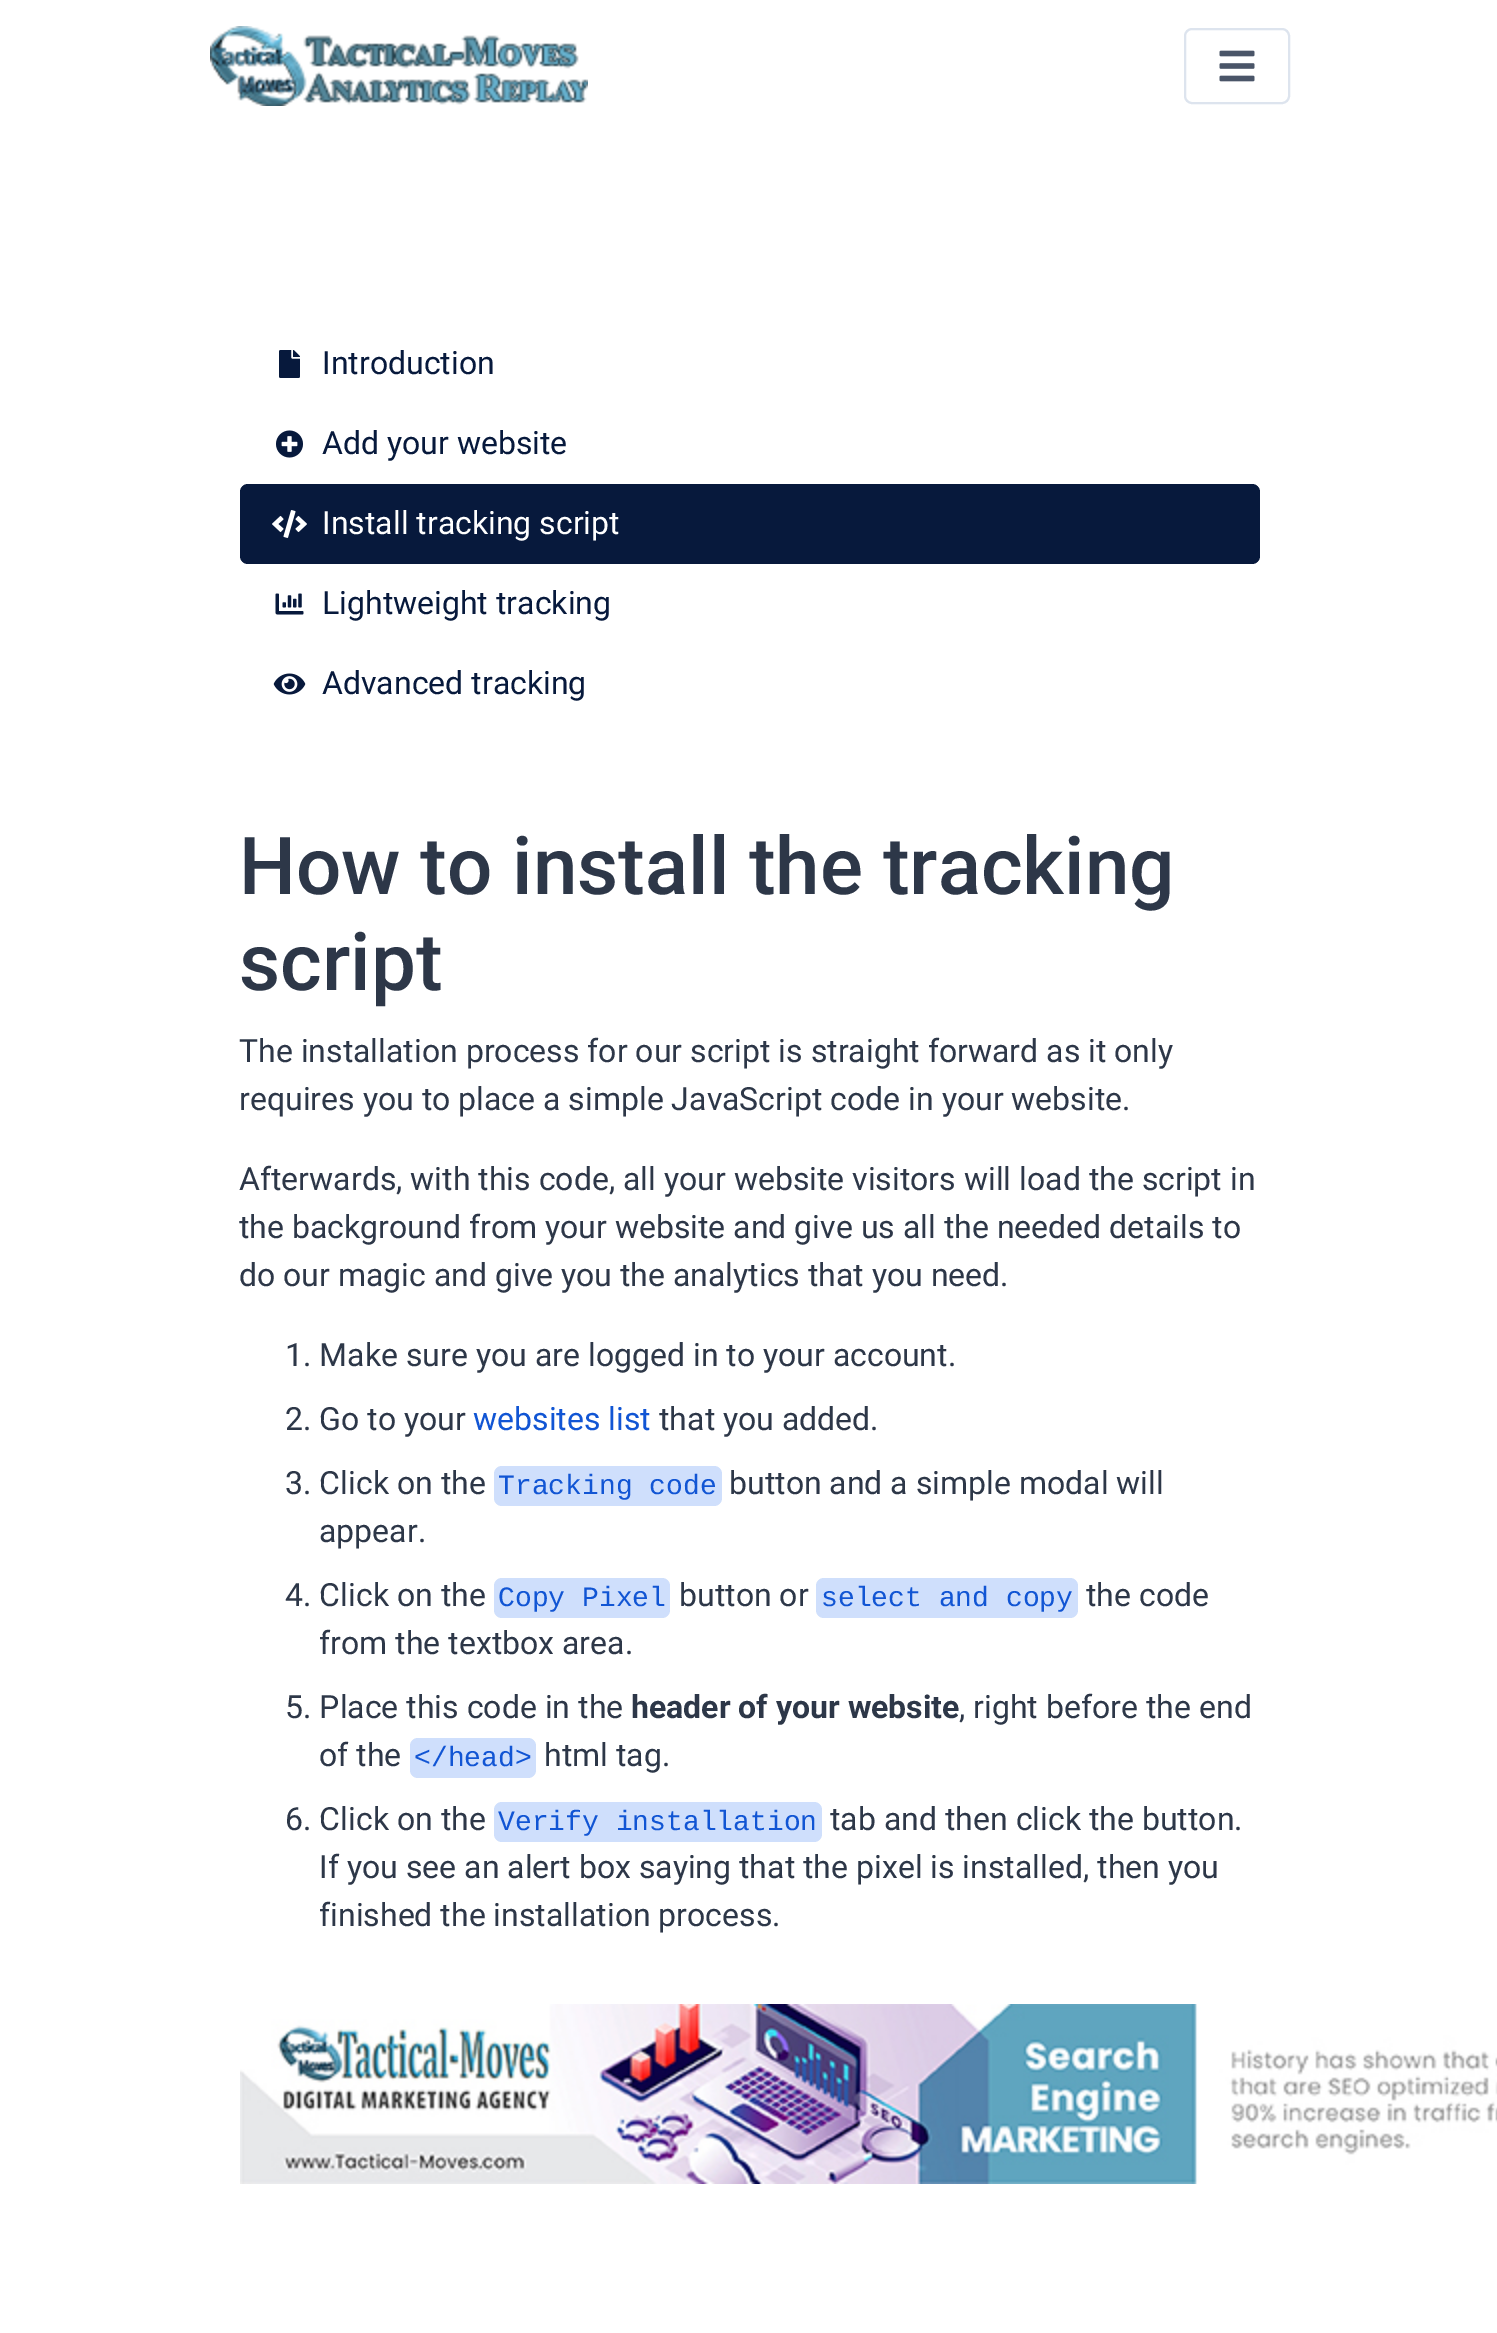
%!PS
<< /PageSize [1497 2333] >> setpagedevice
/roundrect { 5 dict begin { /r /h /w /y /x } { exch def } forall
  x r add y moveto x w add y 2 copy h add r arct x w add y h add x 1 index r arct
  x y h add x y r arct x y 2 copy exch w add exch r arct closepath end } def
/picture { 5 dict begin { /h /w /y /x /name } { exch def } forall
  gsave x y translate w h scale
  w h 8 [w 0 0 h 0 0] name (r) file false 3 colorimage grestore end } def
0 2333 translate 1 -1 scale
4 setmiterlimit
1 setgray
0 0 1497 2333 rectfill
(img1.rgb) 210 26 378 80 picture
0.867 0.894 0.933 setrgbcolor
2 setlinewidth
1185 29 104 74 7 roundrect stroke
(img2.rgb) 1219 50 36 32 picture
(img3.rgb) 279 350 21 28 picture
/Roboto-Regular [32 0 0 -32 0 0] selectfont
0.027 0.098 0.235 setrgbcolor
322 374 moveto (Introduction) show
(img4.rgb) 276 430 27 28 picture
322 454 moveto (Add your website) show
240 484 1020 80 8 roundrect fill
(img5.rgb) 272 510 35 28 picture
1 setgray
322 534 moveto (Install tracking script) show
(img6.rgb) 275 593 29 22 picture
0.027 0.098 0.235 setrgbcolor
322 614 moveto (Lightweight tracking) show
(img7.rgb) 273 673 33 22 picture
322 694 moveto (Advanced tracking) show
/Roboto-Medium [80 0 0 -80 0 0] selectfont
0.176 0.216 0.282 setrgbcolor
239 894 moveto (How to install the tracking) show
239 990 moveto (script) show
/Roboto-Regular [32 0 0 -32 0 0] selectfont
239 1062 moveto (The installation process for our script is straight forward as it only) show
239 1110 moveto (requires you to place a simple JavaScript code in your website.) show
239 1190 moveto (Afterwards, with this code, all your website visitors will load the script in) show
239 1238 moveto (the background from your website and give us all the needed details to) show
239 1286 moveto (do our magic and give you the analytics that you need.) show
285 1366 moveto (1. Make sure you are logged in to your account.) show
285 1430 moveto (2. Go to your) show
0.067 0.333 0.831 setrgbcolor
473 1430 moveto (websites list) show
0.176 0.216 0.282 setrgbcolor
659 1430 moveto (that you added.) show
285 1494 moveto (3. Click on the) show
0.812 0.875 0.988 setrgbcolor
494 1466 228 40 8 roundrect fill
/LiberationMono-Regular [28 0 0 -28 0 0] selectfont
0.067 0.333 0.831 setrgbcolor
498 1494 moveto (Tracking code) show
/Roboto-Regular [32 0 0 -32 0 0] selectfont
0.176 0.216 0.282 setrgbcolor
729 1494 moveto (button and a simple modal will) show
319 1542 moveto (appear.) show
285 1606 moveto (4. Click on the) show
0.812 0.875 0.988 setrgbcolor
494 1578 176 40 8 roundrect fill
/LiberationMono-Regular [28 0 0 -28 0 0] selectfont
0.067 0.333 0.831 setrgbcolor
498 1606 moveto (Copy Pixel) show
/Roboto-Regular [32 0 0 -32 0 0] selectfont
0.176 0.216 0.282 setrgbcolor
679 1606 moveto (button or) show
0.812 0.875 0.988 setrgbcolor
816 1578 262 40 8 roundrect fill
/LiberationMono-Regular [28 0 0 -28 0 0] selectfont
0.067 0.333 0.831 setrgbcolor
821 1606 moveto (select and copy) show
/Roboto-Regular [32 0 0 -32 0 0] selectfont
0.176 0.216 0.282 setrgbcolor
1086 1606 moveto (the code) show
319 1654 moveto (from the textbox area.) show
285 1718 moveto (5. Place this code in the) show
/Roboto-Bold [32 0 0 -32 0 0] selectfont
631 1718 moveto (header of your website) show
/Roboto-Regular [32 0 0 -32 0 0] selectfont
959 1718 moveto (, right before the end) show
319 1766 moveto (of the) show
0.812 0.875 0.988 setrgbcolor
410 1738 126 40 8 roundrect fill
/LiberationMono-Regular [28 0 0 -28 0 0] selectfont
0.067 0.333 0.831 setrgbcolor
414 1766 moveto (</head>) show
/Roboto-Regular [32 0 0 -32 0 0] selectfont
0.176 0.216 0.282 setrgbcolor
544 1766 moveto (html tag.) show
285 1830 moveto (6. Click on the) show
0.812 0.875 0.988 setrgbcolor
494 1802 328 40 8 roundrect fill
/LiberationMono-Regular [28 0 0 -28 0 0] selectfont
0.067 0.333 0.831 setrgbcolor
498 1830 moveto (Verify installation) show
/Roboto-Regular [32 0 0 -32 0 0] selectfont
0.176 0.216 0.282 setrgbcolor
830 1830 moveto (tab and then click the button.) show
319 1878 moveto (If you see an alert box saying that the pixel is installed, then you) show
319 1926 moveto (finished the installation process.) show
(img8.rgb) 240 2004 1257 180 picture
showpage
